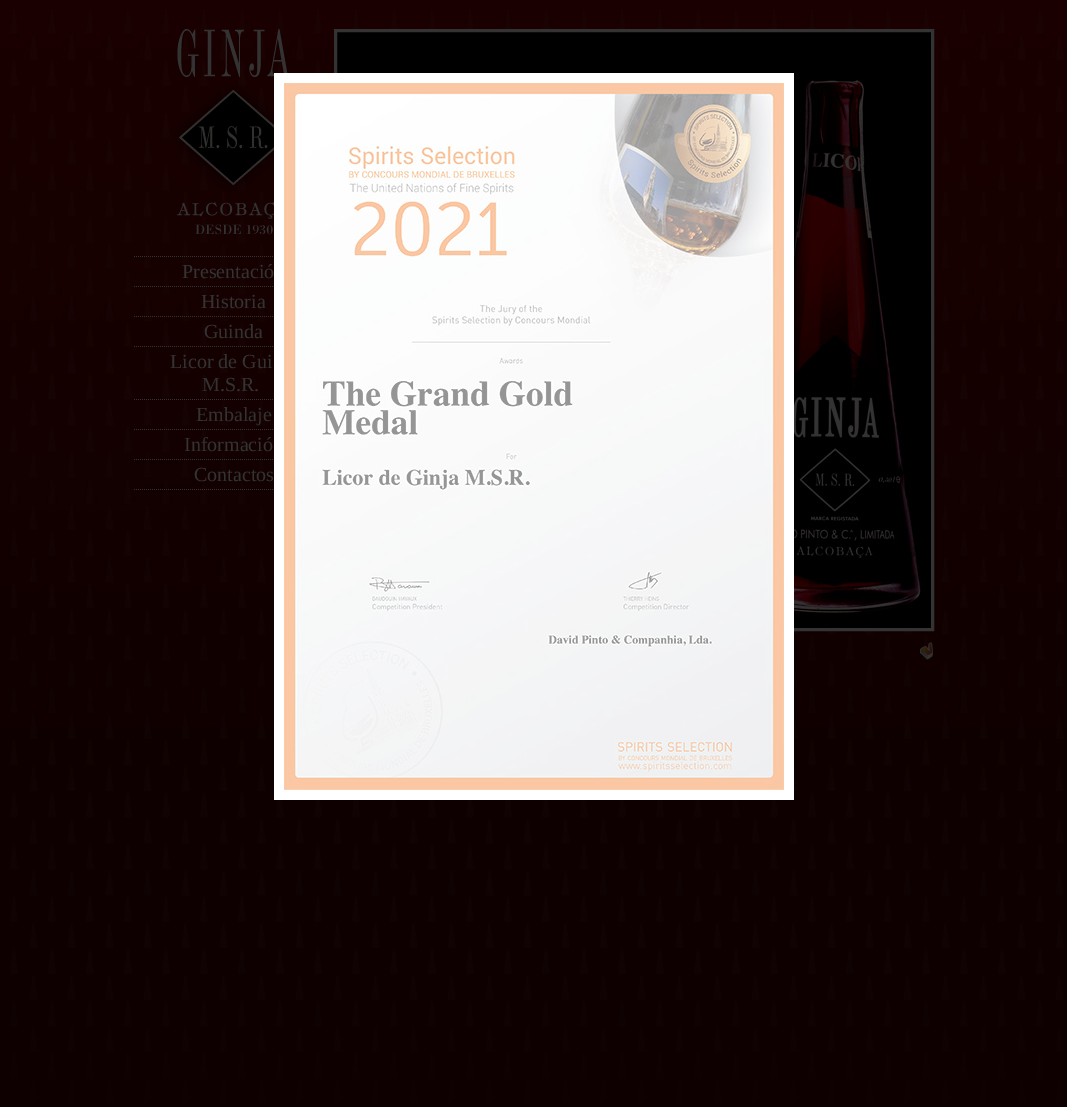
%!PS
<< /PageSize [1067 1107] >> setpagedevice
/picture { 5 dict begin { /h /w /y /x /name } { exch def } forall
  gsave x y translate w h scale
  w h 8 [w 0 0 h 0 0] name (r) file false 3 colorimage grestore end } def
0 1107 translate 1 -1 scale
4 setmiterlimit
0.055 0 0 setrgbcolor
0 0 1067 1107 rectfill
(img1.rgb) 0 0 1067 1103 picture
(img2.rgb) 173 29 115 206 picture
(img3.rgb) 134 256 139 1 picture
/LiberationSerif-Regular [20 0 0 -20 0 0] selectfont
0.2 setgray
182 278 moveto (Presentació) show
(img4.rgb) 134 286 139 1 picture
201 308 moveto (Historia) show
(img5.rgb) 134 316 139 1 picture
204 338 moveto (Guinda) show
(img6.rgb) 134 346 139 1 picture
170 368 moveto (Licor de Gui) show
202 391 moveto (M.S.R.) show
(img7.rgb) 134 399 139 1 picture
196 421 moveto (Embalaje) show
(img8.rgb) 134 429 139 1 picture
184 451 moveto (Informació) show
(img9.rgb) 134 459 139 1 picture
194 481 moveto (Contactos) show
(img10.rgb) 134 489 139 1 picture
0 setgray
newpath 335.5 30.5 moveto 932.5 30.5 lineto 932.5 629.5 lineto 335.5 629.5 lineto closepath gsave fill grestore
0.2 setgray
3 setlinewidth
stroke
(img11.rgb) 794 80 133 536 picture
(img12.rgb) 920 642 13 18 picture
1 setgray
274 73 520 727 rectfill
(img13.rgb) 284 83 500 707 picture
showpage
